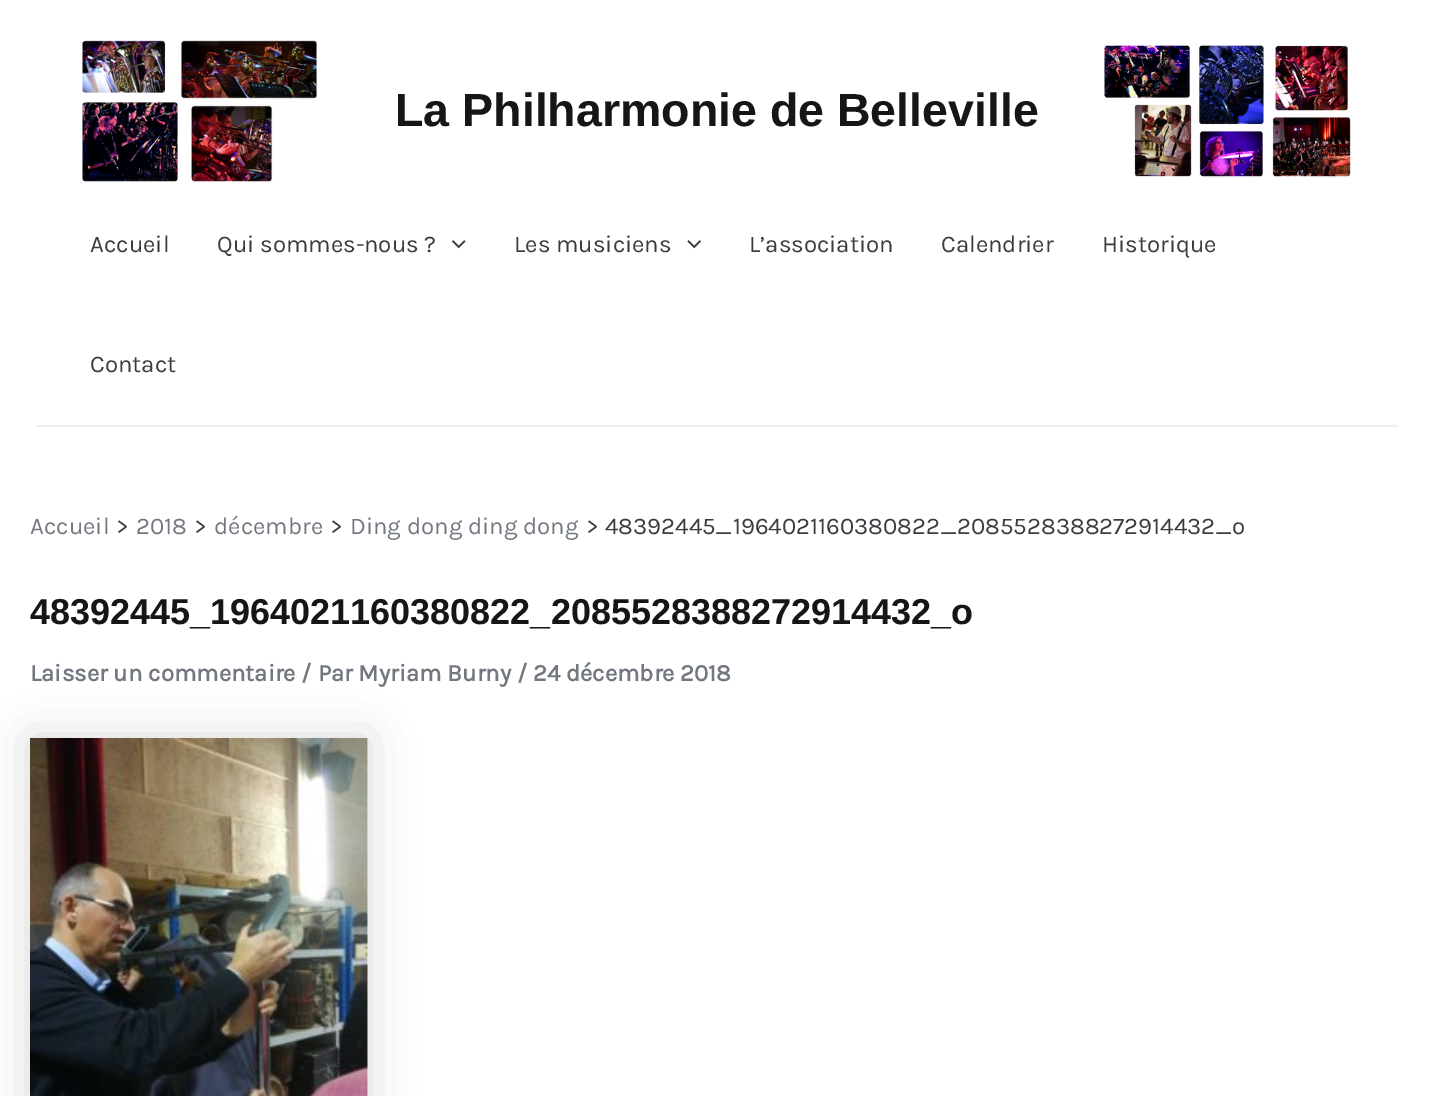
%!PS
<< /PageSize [1433 1096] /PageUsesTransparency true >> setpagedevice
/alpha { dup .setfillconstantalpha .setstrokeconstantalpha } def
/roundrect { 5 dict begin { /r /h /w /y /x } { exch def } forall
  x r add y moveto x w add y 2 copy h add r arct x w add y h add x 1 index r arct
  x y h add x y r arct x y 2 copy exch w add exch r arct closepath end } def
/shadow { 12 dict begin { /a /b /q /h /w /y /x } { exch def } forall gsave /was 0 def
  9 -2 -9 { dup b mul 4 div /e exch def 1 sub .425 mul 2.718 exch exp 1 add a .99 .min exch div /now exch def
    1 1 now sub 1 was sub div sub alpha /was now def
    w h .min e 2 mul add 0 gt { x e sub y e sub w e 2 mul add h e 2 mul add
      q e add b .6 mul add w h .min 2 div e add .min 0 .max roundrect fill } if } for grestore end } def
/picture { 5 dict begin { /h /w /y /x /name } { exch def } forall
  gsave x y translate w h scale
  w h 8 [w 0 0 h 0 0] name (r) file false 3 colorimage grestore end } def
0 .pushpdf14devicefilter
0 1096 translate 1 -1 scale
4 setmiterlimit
1 setgray
0 0 1433 1096 rectfill
(img1.rgb) 82 40 235 142 picture
/LiberationSans-Bold [46.5 0 0 -46.5 0 0] selectfont
0.082 0.086 0.086 setrgbcolor
395 126 moveto (La Philharmonie de Belleville) show
(img2.rgb) 1104 45 247 133 picture
0.945 0.941 0.941 setrgbcolor
36 425 1362 2 rectfill
/Karla-Regular [24 0 0 -24 0 0] selectfont
0.224 0.235 0.251 setrgbcolor
90 252 moveto (Accueil) show
217 252 moveto (Qui sommes-nous ?) show
(img3.rgb) 452 240 14 9 picture
514 252 moveto (Les musiciens) show
(img4.rgb) 687 240 14 9 picture
749 252 moveto (L’association) show
941 252 moveto (Calendrier) show
1102 252 moveto (Historique) show
90 372 moveto (Contact) show
0.451 0.471 0.502 setrgbcolor
30 534 moveto (Accueil) show
0.224 0.235 0.251 setrgbcolor
116 534 moveto (>) show
0.451 0.471 0.502 setrgbcolor
136 534 moveto (2018) show
0.224 0.235 0.251 setrgbcolor
194 534 moveto (>) show
0.451 0.471 0.502 setrgbcolor
214 534 moveto (décembre) show
0.224 0.235 0.251 setrgbcolor
330 534 moveto (>) show
0.451 0.471 0.502 setrgbcolor
350 534 moveto (Ding dong ding dong) show
0.224 0.235 0.251 setrgbcolor
586 534 moveto (>) show
605 534 moveto (48392445_1964021160380822_2085528388272914432_o) show
/LiberationSans-Bold [36 0 0 -36 0 0] selectfont
0.082 0.086 0.086 setrgbcolor
30 624 moveto (48392445_1964021160380822_2085528388272914432_o) show
/Karla-Bold [24 0 0 -24 0 0] selectfont
0.451 0.471 0.502 setrgbcolor
30 681 moveto (Laisser un commentaire / Par Myriam Burny / 24 décembre 2018) show
0 setgray
30 738 338 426 0 22.5 0.15 shadow
(img5.rgb) 30 738 338 358 picture
.poppdf14devicefilter showpage
